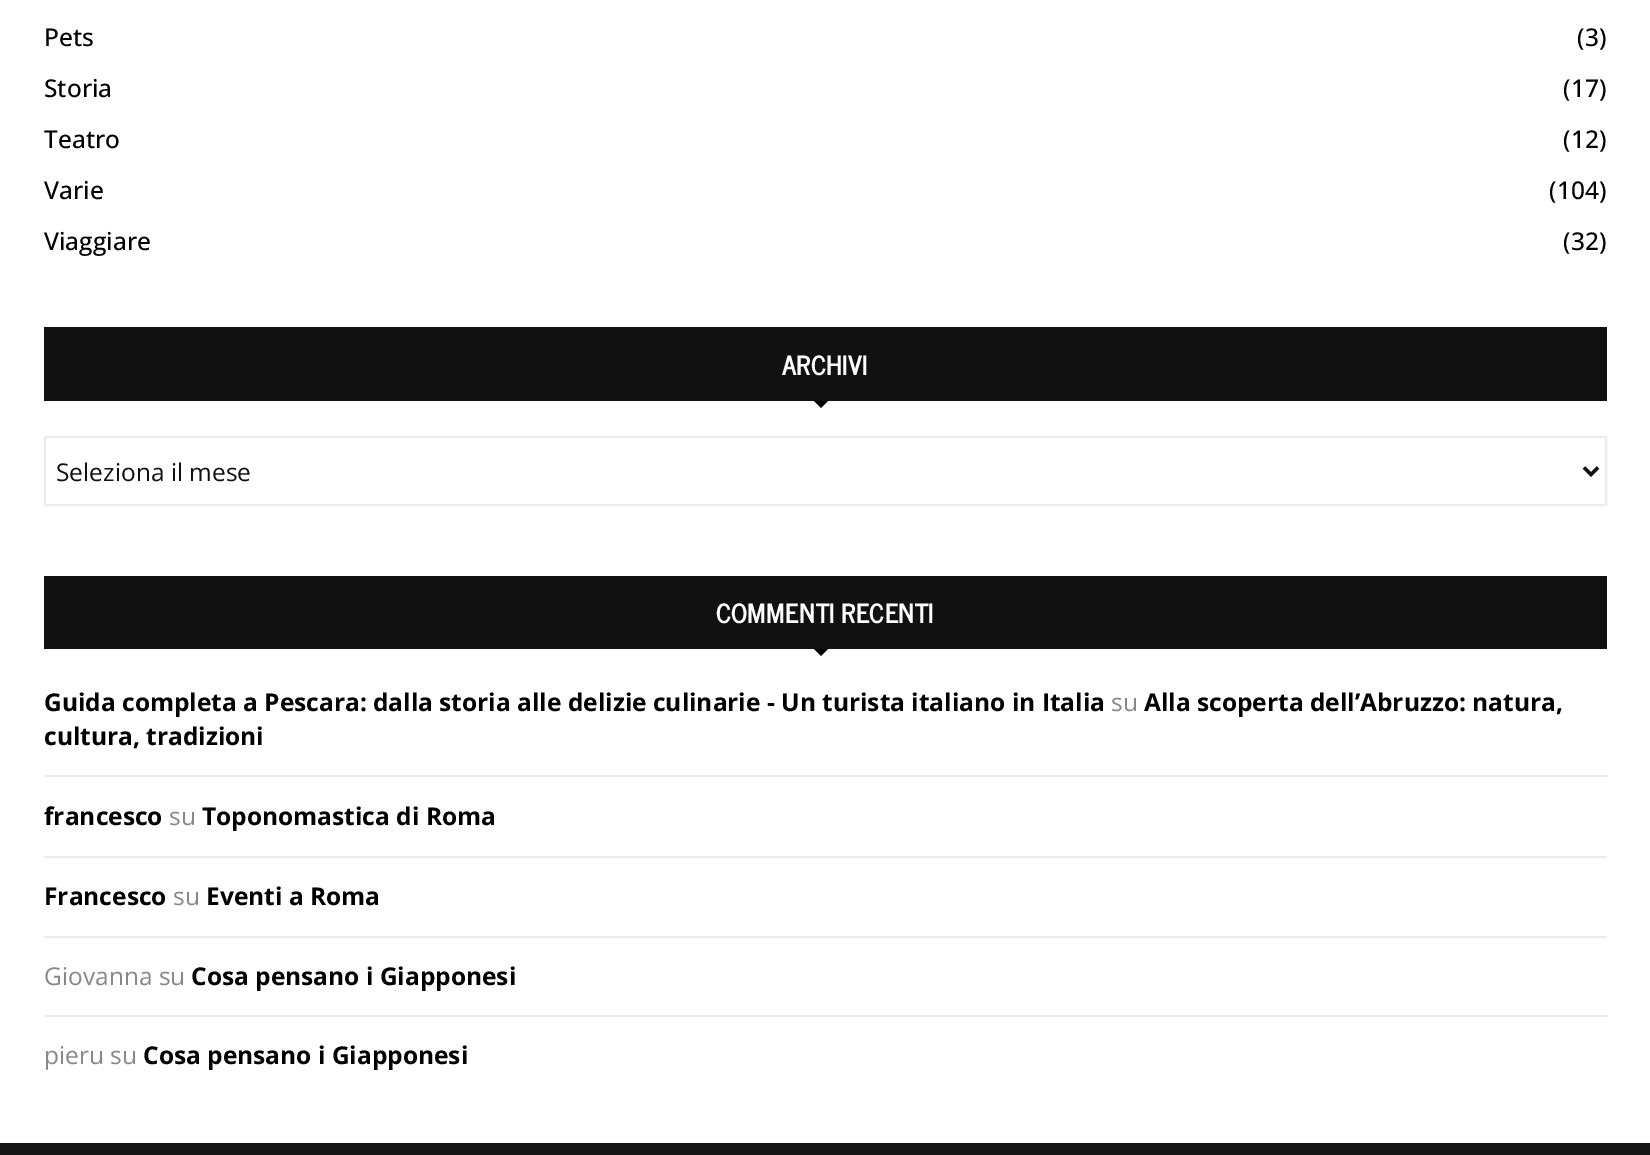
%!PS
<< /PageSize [1650 1155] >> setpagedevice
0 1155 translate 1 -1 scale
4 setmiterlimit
1 setgray
0 0 1650 1155 rectfill
/OpenSans-Medium [24.5 0 0 -24.5 0 0] selectfont
0 setgray
44 46 moveto (Pets) show
1577 46 moveto (\(3\)) show
44 97 moveto (Storia) show
1563 97 moveto (\(17\)) show
44 148 moveto (Teatro) show
1563 148 moveto (\(12\)) show
44 199 moveto (Varie) show
1549 199 moveto (\(104\)) show
44 250 moveto (Viaggiare) show
1563 250 moveto (\(32\)) show
0.067 setgray
44 327 1563 74 rectfill
/NewsCycle-Bold [26.25 0 0 -26.25 0 0] selectfont
1 setgray
782 375 moveto (ARCHIVI) show
0 setgray
newpath 814 401 moveto 828 401 lineto 821 408 lineto closepath fill
0.925 setgray
2 setlinewidth
45 437 1561 68 rectstroke
0.067 setgray
3.5 setlinewidth
newpath 1584 467.5 moveto 1591 474.5 lineto 1598 467.5 lineto stroke
/OpenSans-Regular [24.5 0 0 -24.5 0 0] selectfont
56 481 moveto (Seleziona il mese) show
44 576 1563 73 rectfill
/NewsCycle-Bold [26.25 0 0 -26.25 0 0] selectfont
1 setgray
716 623 moveto (COMMENTI RECENTI) show
0 setgray
newpath 814 649 moveto 828 649 lineto 821 656 lineto closepath fill
0.925 setgray
44 775 1563 2 rectfill
/OpenSans-Bold [24.5 0 0 -24.5 0 0] selectfont
0 setgray
44 711 moveto (Guida completa a Pescara: dalla storia alle delizie culinarie - Un turista italiano in Italia) show
/OpenSans-Regular [24.5 0 0 -24.5 0 0] selectfont
0.533 setgray
1111 711 moveto (su) show
/OpenSans-Bold [24.5 0 0 -24.5 0 0] selectfont
0 setgray
1144 711 moveto (Alla scoperta dell’Abruzzo: natura,) show
44 745 moveto (cultura, tradizioni) show
0.925 setgray
44 856 1563 2 rectfill
0 setgray
44 825 moveto (francesco) show
/OpenSans-Regular [24.5 0 0 -24.5 0 0] selectfont
0.533 setgray
169 825 moveto (su) show
/OpenSans-Bold [24.5 0 0 -24.5 0 0] selectfont
0 setgray
202 825 moveto (Toponomastica di Roma) show
0.925 setgray
44 936 1563 2 rectfill
0 setgray
44 905 moveto (Francesco) show
/OpenSans-Regular [24.5 0 0 -24.5 0 0] selectfont
0.533 setgray
173 905 moveto (su) show
/OpenSans-Bold [24.5 0 0 -24.5 0 0] selectfont
0 setgray
206 905 moveto (Eventi a Roma) show
0.925 setgray
44 1015 1563 2 rectfill
/OpenSans-Regular [24.5 0 0 -24.5 0 0] selectfont
0.533 setgray
44 985 moveto (Giovanna su) show
/OpenSans-Bold [24.5 0 0 -24.5 0 0] selectfont
0 setgray
191 985 moveto (Cosa pensano i Giapponesi) show
/OpenSans-Regular [24.5 0 0 -24.5 0 0] selectfont
0.533 setgray
44 1064 moveto (pieru su) show
/OpenSans-Bold [24.5 0 0 -24.5 0 0] selectfont
0 setgray
143 1064 moveto (Cosa pensano i Giapponesi) show
0.082 setgray
0 1143 1650 12 rectfill
showpage
